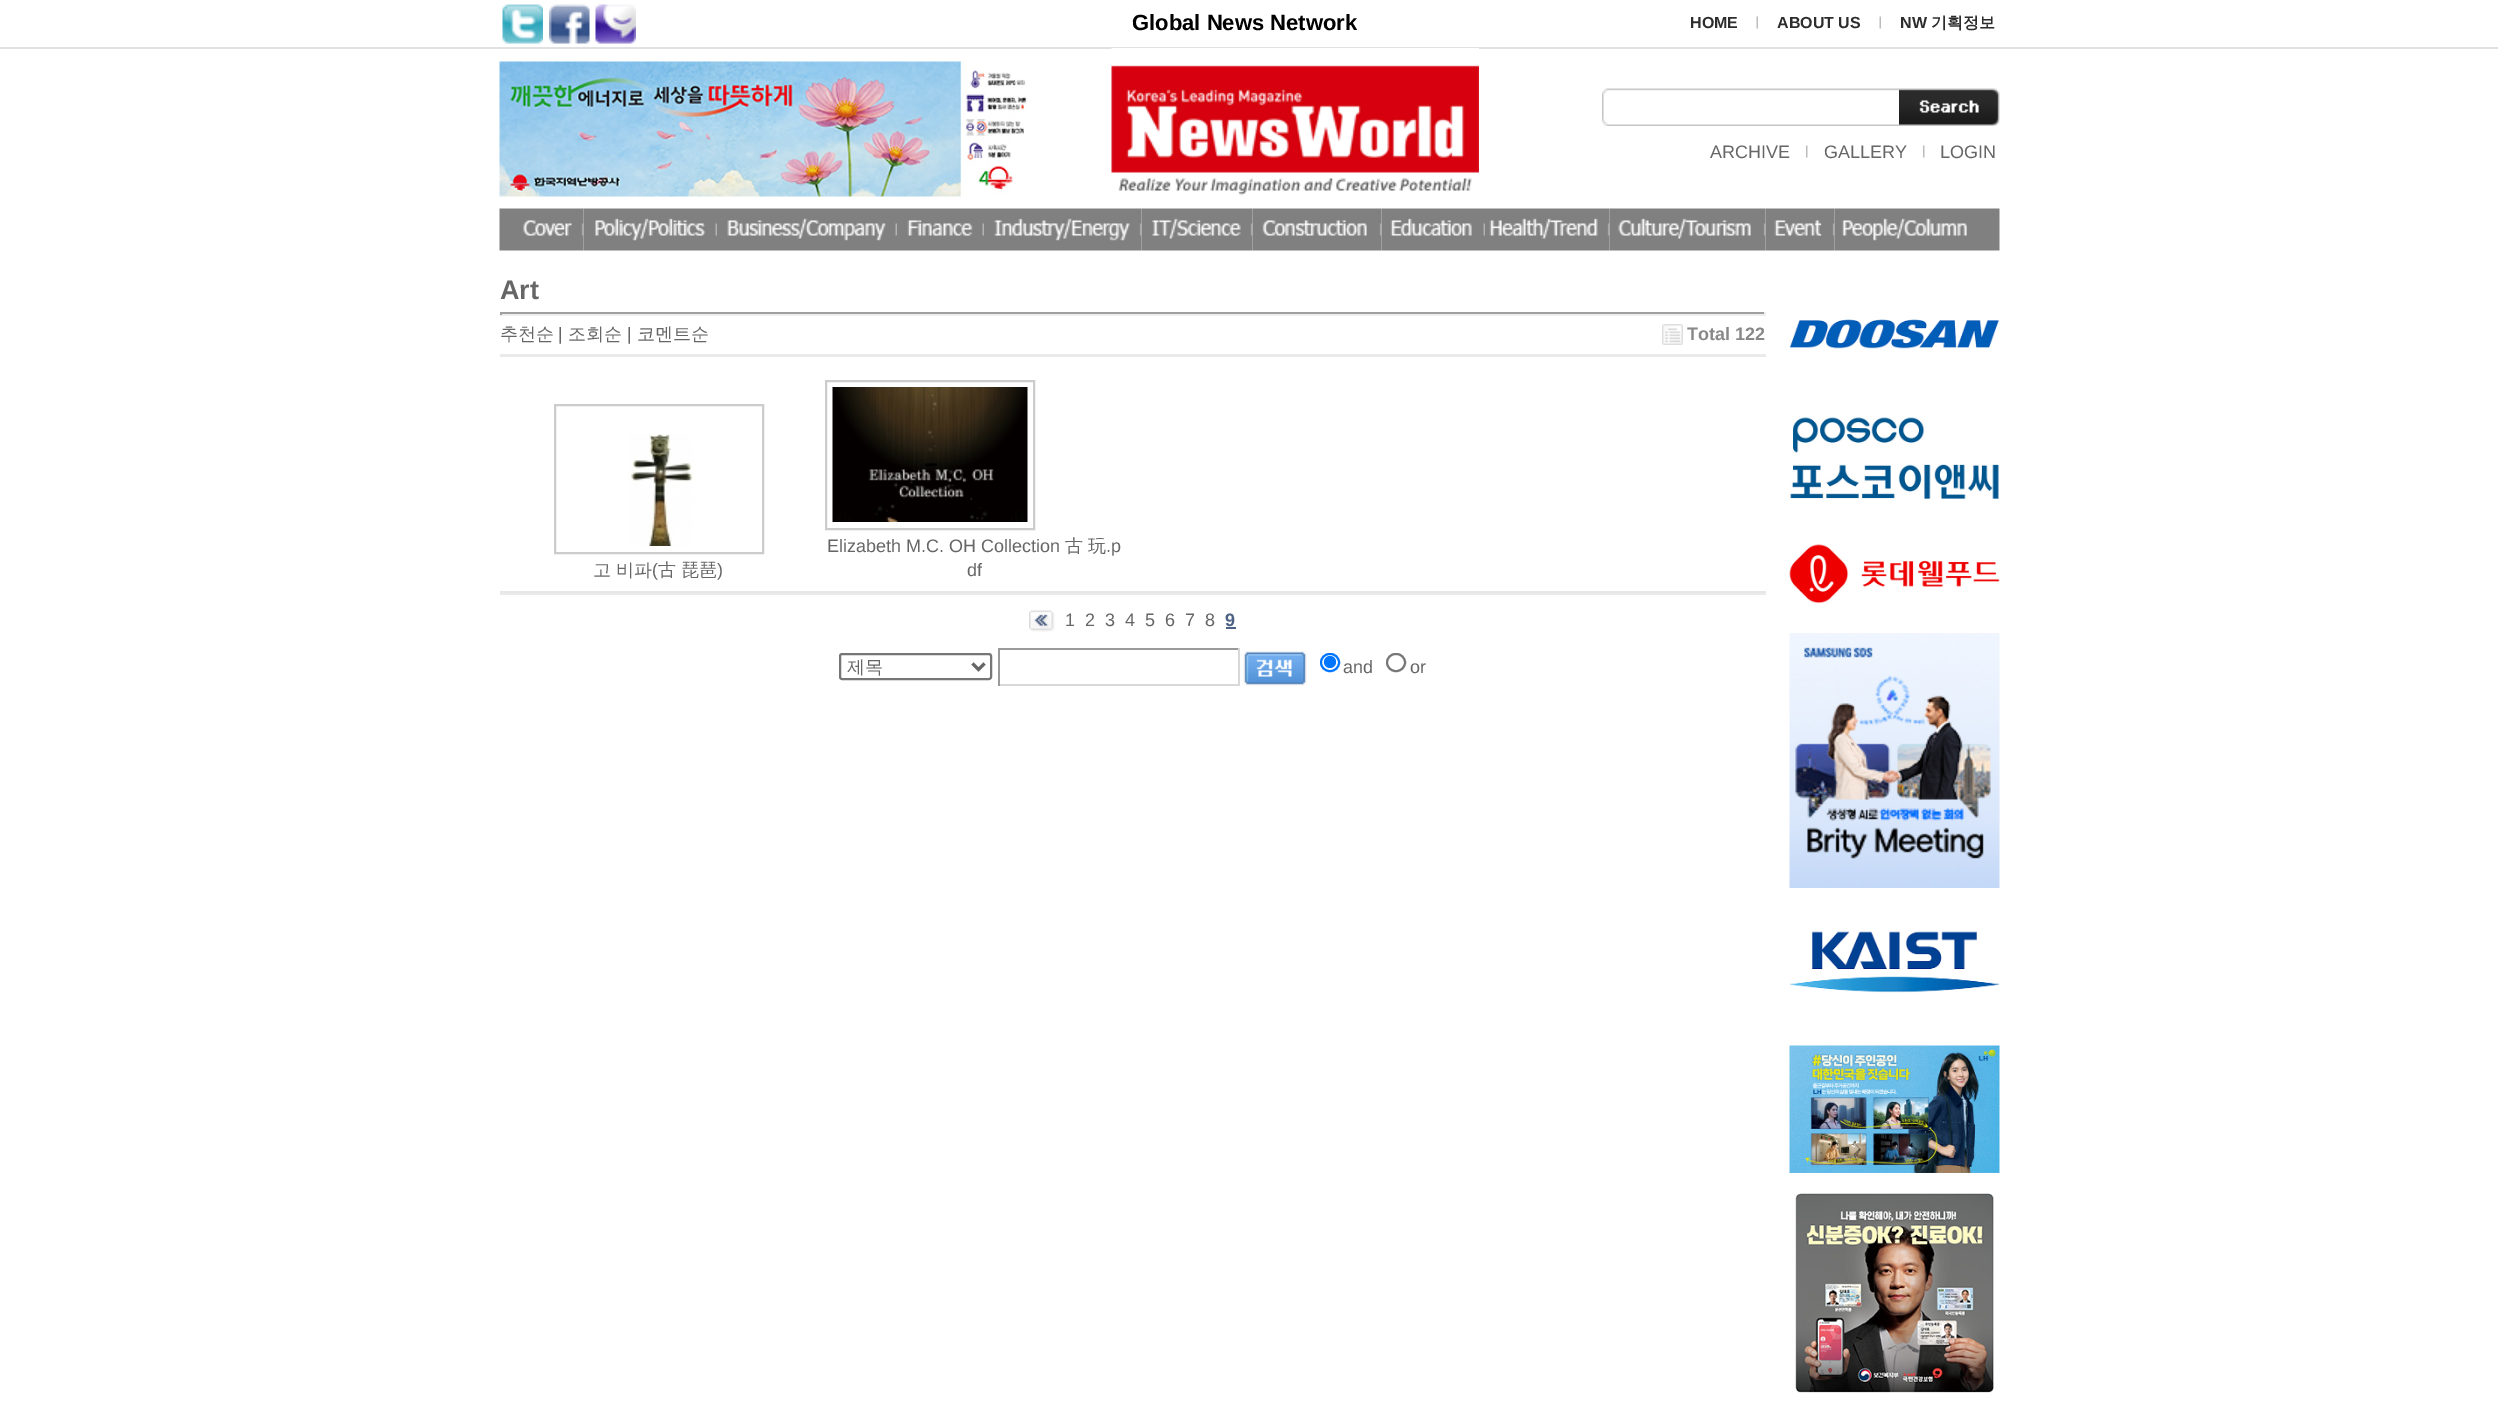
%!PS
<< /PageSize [2498 1408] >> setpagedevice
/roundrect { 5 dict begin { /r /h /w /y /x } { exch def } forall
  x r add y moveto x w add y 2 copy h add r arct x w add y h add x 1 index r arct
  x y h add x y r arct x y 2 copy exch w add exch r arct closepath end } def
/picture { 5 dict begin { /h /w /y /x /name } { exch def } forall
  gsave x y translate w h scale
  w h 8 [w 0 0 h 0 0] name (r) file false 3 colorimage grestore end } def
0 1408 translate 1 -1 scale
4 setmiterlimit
1 setgray
0 0 2498 1408 rectfill
0.882 setgray
0 47 2498 2 rectfill
(img1.rgb) 502 4 41 40 picture
(img2.rgb) 549 4 41 40 picture
(img3.rgb) 595 4 41 40 picture
/LiberationSans-Bold [22 0 0 -22 0 0] selectfont
0 setgray
1132 30 moveto (Global News Network) show
/LiberationSans-Bold [16 0 0 -16 0 0] selectfont
0.176 setgray
1690 28 moveto (HOME) show
(img4.rgb) 1756 16 2 13 picture
1777 28 moveto (ABOUT US) show
(img4.rgb) 1879 16 2 13 picture
1900 28 moveto (NW) show
/WenQuanYiZenHei-Bold [16 0 0 -16 0 0] selectfont
1931 28 moveto (기획정보) show
(img5.rgb) 499 61 528 136 picture
(img6.rgb) 1111 48 368 148 picture
(img7.rgb) 1602 88 297 38 picture
(img8.rgb) 1899 88 101 38 picture
/LiberationSans-Regular [18 0 0 -18 0 0] selectfont
0.4 setgray
1710 158 moveto (ARCHIVE) show
(img9.rgb) 1806 145 2 13 picture
1824 158 moveto (GALLERY) show
(img9.rgb) 1923 145 2 13 picture
1940 158 moveto (LOGIN) show
(img10.rgb) 499 208 85 43 picture
(img11.rgb) 583 208 134 43 picture
(img12.rgb) 717 208 180 43 picture
(img13.rgb) 897 208 87 43 picture
(img14.rgb) 984 208 158 43 picture
(img15.rgb) 1141 208 112 43 picture
(img16.rgb) 1252 208 130 43 picture
(img17.rgb) 1381 208 104 43 picture
(img18.rgb) 1485 208 125 43 picture
(img19.rgb) 1609 208 157 43 picture
(img20.rgb) 1765 208 70 43 picture
(img21.rgb) 1834 208 166 43 picture
/LiberationSans-Bold [27 0 0 -27 0 0] selectfont
500 299 moveto (Art) show
0.624 setgray
500 312 1266 2 rectfill
0.933 setgray
1764 312 2 3 rectfill
500 314 1266 2 rectfill
0.624 setgray
500 312 2 3 rectfill
/WenQuanYiZenHei-Medium [18 0 0 -18 0 0] selectfont
0.4 setgray
500 340 moveto (추천순) show
/LiberationSans-Regular [18 0 0 -18 0 0] selectfont
558 340 moveto (|) show
/WenQuanYiZenHei-Medium [18 0 0 -18 0 0] selectfont
568 340 moveto (조회순) show
/LiberationSans-Regular [18 0 0 -18 0 0] selectfont
627 340 moveto (|) show
/WenQuanYiZenHei-Medium [18 0 0 -18 0 0] selectfont
637 340 moveto (코멘트순) show
(img22.rgb) 1662 324 21 21 picture
/LiberationSans-Bold [18 0 0 -18 0 0] selectfont
0.533 setgray
1687 340 moveto (Total 122) show
0.918 setgray
500 354 1266 3 rectfill
0.8 setgray
2 setlinewidth
555 405 208 148 rectstroke
(img23.rgb) 629 434 65 112 picture
/WenQuanYiZenHei-Medium [18 0 0 -18 0 0] selectfont
0.4 setgray
593 576 moveto (고 비파) show
/LiberationSans-Regular [18 0 0 -18 0 0] selectfont
652 576 moveto (\() show
/WenQuanYiZenHei-Medium [18 0 0 -18 0 0] selectfont
658 576 moveto (古 琵琶) show
/LiberationSans-Regular [18 0 0 -18 0 0] selectfont
717 576 moveto (\)) show
0.8 setgray
826 381 208 148 rectstroke
(img24.rgb) 832 387 196 135 picture
0.4 setgray
827 552 moveto (Elizabeth M.C. OH Collection) show
/WenQuanYiZenHei-Medium [18 0 0 -18 0 0] selectfont
1065 552 moveto (古) show
1088 552 moveto (玩) show
/LiberationSans-Regular [18 0 0 -18 0 0] selectfont
1106 552 moveto (.p) show
967 576 moveto (df) show
0.906 setgray
500 591 1266 2 rectfill
0.918 setgray
500 593 1266 2 rectfill
(img25.rgb) 1029 610 26 22 picture
0.4 setgray
1065 626 moveto (1) show
1085 626 moveto (2) show
1105 626 moveto (3) show
1125 626 moveto (4) show
1145 626 moveto (5) show
1165 626 moveto (6) show
1185 626 moveto (7) show
1205 626 moveto (8) show
/LiberationSans-Bold [18 0 0 -18 0 0] selectfont
0.302 0.38 0.522 setrgbcolor
1225 626 moveto (9) show
1226 627 10 2 rectfill
0.463 setgray
840 654 151 25 2 roundrect stroke
0.4 setgray
3 setlinewidth
newpath 972.5 663.5 moveto 978.5 669.5 lineto 984.5 663.5 lineto stroke
/WenQuanYiZenHei-Medium [18 0 0 -18 0 0] selectfont
847 673 moveto (제목) show
0.604 setgray
998 648 241 2 rectfill
0.847 setgray
1238 648 2 38 rectfill
998 684 241 2 rectfill
0.604 setgray
998 648 2 38 rectfill
(img26.rgb) 1243 651 64 35 picture
0 0.459 1 setrgbcolor
2 setlinewidth
1321 654 18 17 8.5 roundrect stroke
newpath 1330 662 6 0 360 arc closepath fill
/LiberationSans-Regular [18 0 0 -18 0 0] selectfont
0.4 setgray
1343 673 moveto (and) show
0.463 setgray
1387 654 18 17 8.5 roundrect stroke
0.4 setgray
1410 673 moveto (or) show
(img27.rgb) 1789 319 210 30 picture
(img28.rgb) 1790 417 209 82 picture
(img29.rgb) 1789 544 211 60 picture
(img30.rgb) 1789 633 211 255 picture
(img31.rgb) 1789 931 211 62 picture
(img32.rgb) 1789 1045 211 128 picture
(img33.rgb) 1795 1193 199 200 picture
showpage
